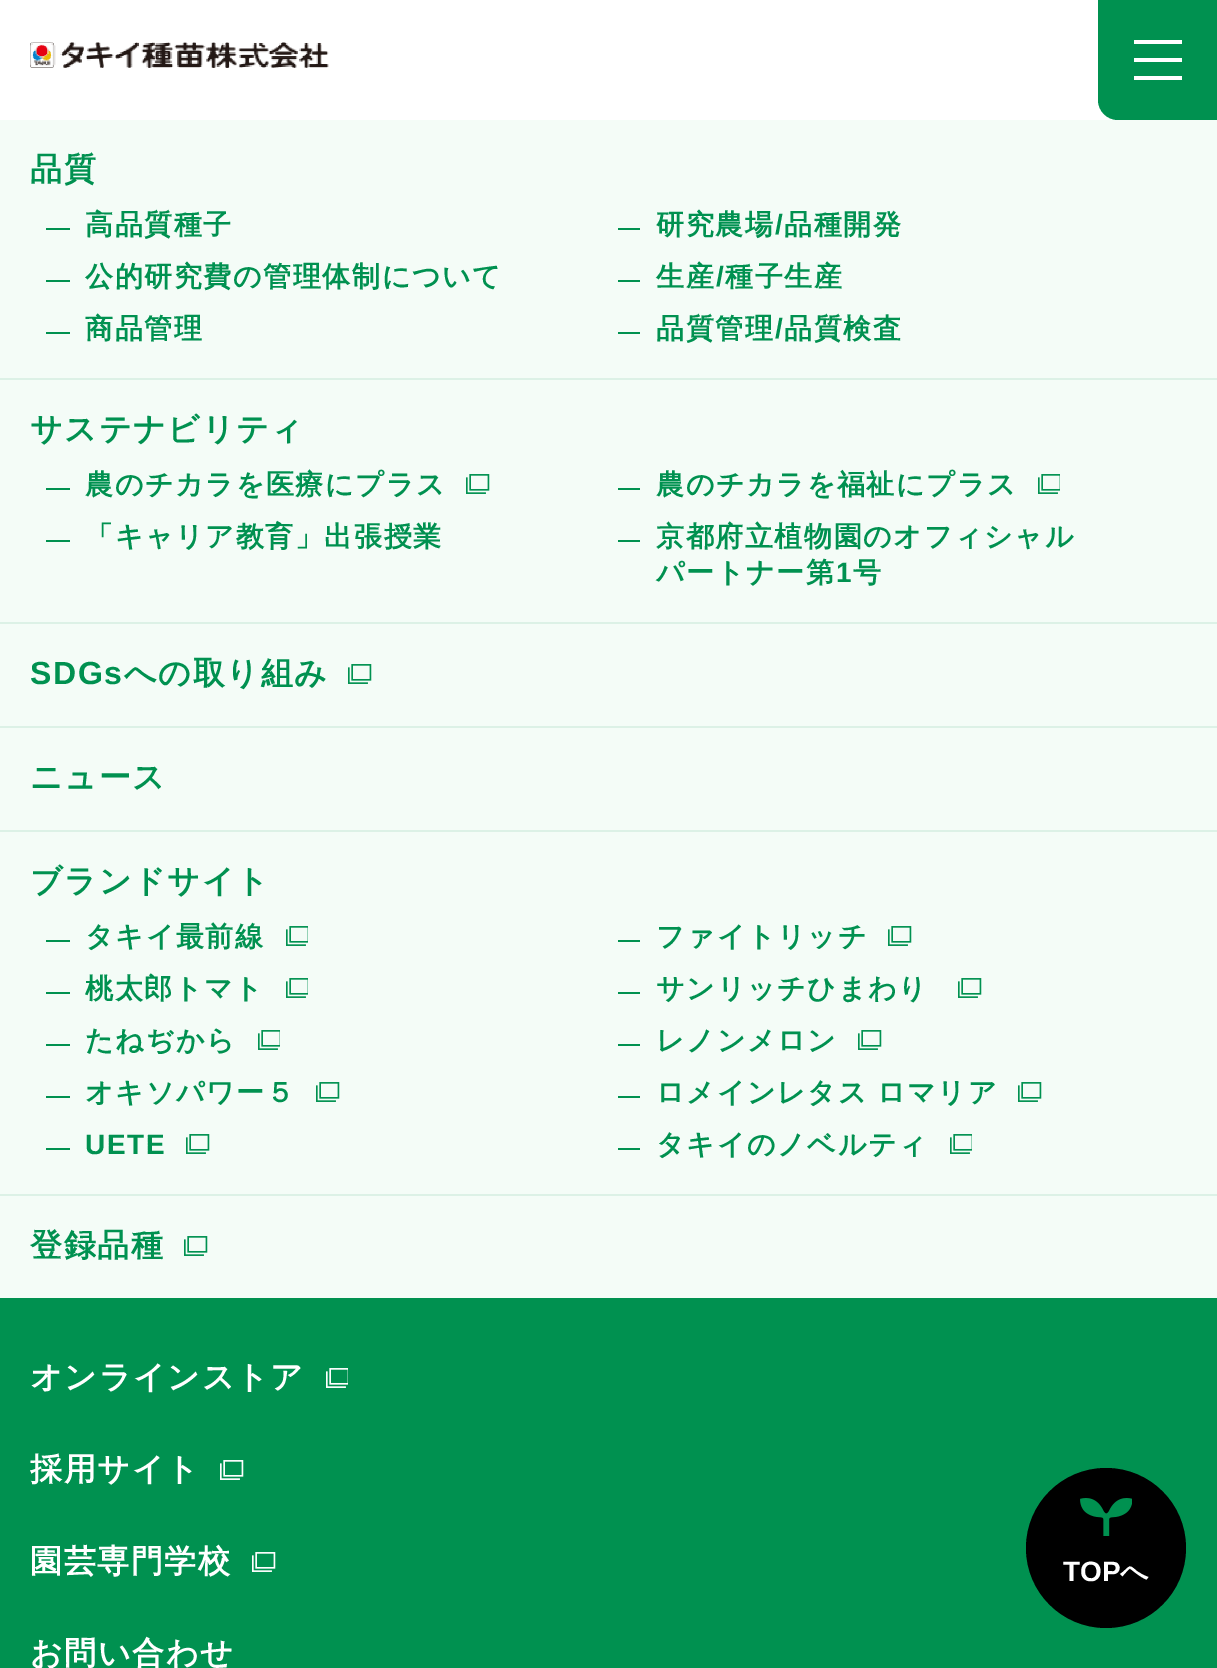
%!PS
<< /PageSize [1217 1668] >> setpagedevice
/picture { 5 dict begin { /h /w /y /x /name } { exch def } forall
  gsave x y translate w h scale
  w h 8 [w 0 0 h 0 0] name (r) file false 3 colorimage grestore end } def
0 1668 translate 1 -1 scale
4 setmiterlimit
0.957 0.988 0.969 setrgbcolor
0 0 1217 1668 rectfill
1 setgray
0 0 1118 120 rectfill
(img1.rgb) 30 42 299 26 picture
0 0.569 0.314 setrgbcolor
newpath 1098 0 moveto 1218 0 lineto 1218 120 lineto 1118 120 lineto 1107 120 1098 111 1098 100 curveto closepath fill
1 setgray
1134 40 48 4 rectfill
1134 58 48 4 rectfill
1134 76 48 4 rectfill
/WenQuanYiZenHei-Bold [32 0 0 -32 0 0] selectfont
0 0.569 0.314 setrgbcolor
30 180 moveto 1.6 0 (品質) ashow
46 228 24 2 rectfill
/WenQuanYiZenHei-Bold [28 0 0 -28 0 0] selectfont
85 234 moveto 1.6 0 (高品質種子) ashow
618 228 22 2 rectfill
656 234 moveto 1.6 0 (研究農場) ashow
/LiberationSans-Bold [28 0 0 -28 0 0] selectfont
775 234 moveto 1.6 0 (/) ashow
/WenQuanYiZenHei-Bold [28 0 0 -28 0 0] selectfont
784 234 moveto 1.6 0 (品種開発) ashow
46 280 24 2 rectfill
85 286 moveto 1.6 0 (公的研究費の管理体制について) ashow
618 280 22 2 rectfill
656 286 moveto 1.6 0 (生産) ashow
/LiberationSans-Bold [28 0 0 -28 0 0] selectfont
716 286 moveto 1.6 0 (/) ashow
/WenQuanYiZenHei-Bold [28 0 0 -28 0 0] selectfont
725 286 moveto 1.6 0 (種子生産) ashow
46 332 24 2 rectfill
85 338 moveto 1.6 0 (商品管理) ashow
618 332 22 2 rectfill
656 338 moveto 1.6 0 (品質管理) ashow
/LiberationSans-Bold [28 0 0 -28 0 0] selectfont
775 338 moveto 1.6 0 (/) ashow
/WenQuanYiZenHei-Bold [28 0 0 -28 0 0] selectfont
784 338 moveto 1.6 0 (品質検査) ashow
0.863 0.945 0.902 setrgbcolor
0 378 1217 2 rectfill
/WenQuanYiZenHei-Bold [32 0 0 -32 0 0] selectfont
0 0.569 0.314 setrgbcolor
30 440 moveto 1.6 0 (サステナビリティ) ashow
46 488 24 2 rectfill
/WenQuanYiZenHei-Bold [28 0 0 -28 0 0] selectfont
85 494 moveto 1.6 0 (農のチカラを医療にプラス) ashow
(img2.rgb) 466 474 24 20 picture
618 488 22 2 rectfill
656 494 moveto 1.6 0 (農のチカラを福祉にプラス) ashow
(img3.rgb) 1038 474 22 20 picture
46 540 24 2 rectfill
85 546 moveto 1.6 0 (「キャリア教育」出張授業) ashow
618 540 22 2 rectfill
656 546 moveto 1.6 0 (京都府立植物園のオフィシャル) ashow
656 582 moveto 1.6 0 (パートナー第) ashow
/LiberationSans-Bold [28 0 0 -28 0 0] selectfont
836 582 moveto 1.6 0 (1) ashow
/WenQuanYiZenHei-Bold [28 0 0 -28 0 0] selectfont
853 582 moveto 1.6 0 (号) ashow
0.863 0.945 0.902 setrgbcolor
0 622 1217 2 rectfill
/LiberationSans-Bold [32 0 0 -32 0 0] selectfont
0 0.569 0.314 setrgbcolor
30 684 moveto 1.6 0 (SDGs) ashow
/WenQuanYiZenHei-Bold [32 0 0 -32 0 0] selectfont
124 684 moveto 1.6 0 (への取り組み) ashow
(img2.rgb) 348 664 24 20 picture
0.863 0.945 0.902 setrgbcolor
0 726 1217 2 rectfill
0 0.569 0.314 setrgbcolor
30 788 moveto 1.6 0 (ニュース) ashow
0.863 0.945 0.902 setrgbcolor
0 830 1217 2 rectfill
0 0.569 0.314 setrgbcolor
30 892 moveto 1.6 0 (ブランドサイト) ashow
46 940 24 2 rectfill
/WenQuanYiZenHei-Bold [28 0 0 -28 0 0] selectfont
85 946 moveto 1.6 0 (タキイ最前線) ashow
(img3.rgb) 286 926 22 20 picture
618 940 22 2 rectfill
656 946 moveto 1.6 0 (ファイトリッチ) ashow
(img2.rgb) 888 926 24 20 picture
46 992 24 2 rectfill
85 998 moveto 1.6 0 (桃太郎トマト) ashow
(img3.rgb) 286 978 22 20 picture
618 992 22 2 rectfill
656 998 moveto 1.6 0 (サンリッチひまわり) ashow
(img2.rgb) 958 978 24 20 picture
46 1044 24 2 rectfill
85 1050 moveto 1.6 0 (たねぢから) ashow
(img3.rgb) 258 1030 22 20 picture
618 1044 22 2 rectfill
656 1050 moveto 1.6 0 (レノンメロン) ashow
(img2.rgb) 858 1030 24 20 picture
46 1096 24 2 rectfill
85 1102 moveto 1.6 0 (オキソパワー５) ashow
(img2.rgb) 316 1082 24 20 picture
618 1096 22 2 rectfill
656 1102 moveto -1 0 32 1.6 0 (ロメインレタス ロマリア) awidthshow
(img2.rgb) 1018 1082 24 20 picture
46 1148 24 2 rectfill
/LiberationSans-Bold [28 0 0 -28 0 0] selectfont
85 1154 moveto 1.6 0 (UETE) ashow
(img2.rgb) 186 1134 24 20 picture
618 1148 22 2 rectfill
/WenQuanYiZenHei-Bold [28 0 0 -28 0 0] selectfont
656 1154 moveto 1.6 0 (タキイのノベルティ) ashow
(img3.rgb) 950 1134 22 20 picture
0.863 0.945 0.902 setrgbcolor
0 1194 1217 2 rectfill
/WenQuanYiZenHei-Bold [32 0 0 -32 0 0] selectfont
0 0.569 0.314 setrgbcolor
30 1256 moveto 1.6 0 (登録品種) ashow
(img2.rgb) 184 1236 24 20 picture
0 1298 1217 370 rectfill
1 setgray
30 1388 moveto 1.6 0 (オンラインストア) ashow
(img4.rgb) 326 1368 22 20 picture
30 1480 moveto 1.6 0 (採用サイト) ashow
(img5.rgb) 220 1460 24 20 picture
30 1572 moveto 1.6 0 (園芸専門学校) ashow
(img5.rgb) 252 1552 24 20 picture
30 1664 moveto 1.6 0 (お問い合わせ) ashow
0 setgray
newpath 1106 1548 80 0 360 arc closepath fill
(img6.rgb) 1080 1498 52 38 picture
/LiberationSans-Bold [28 0 0 -28 0 0] selectfont
1 setgray
1063 1581 moveto (TOP) show
/WenQuanYiZenHei-Bold [28 0 0 -28 0 0] selectfont
1120 1581 moveto (へ) show
showpage
